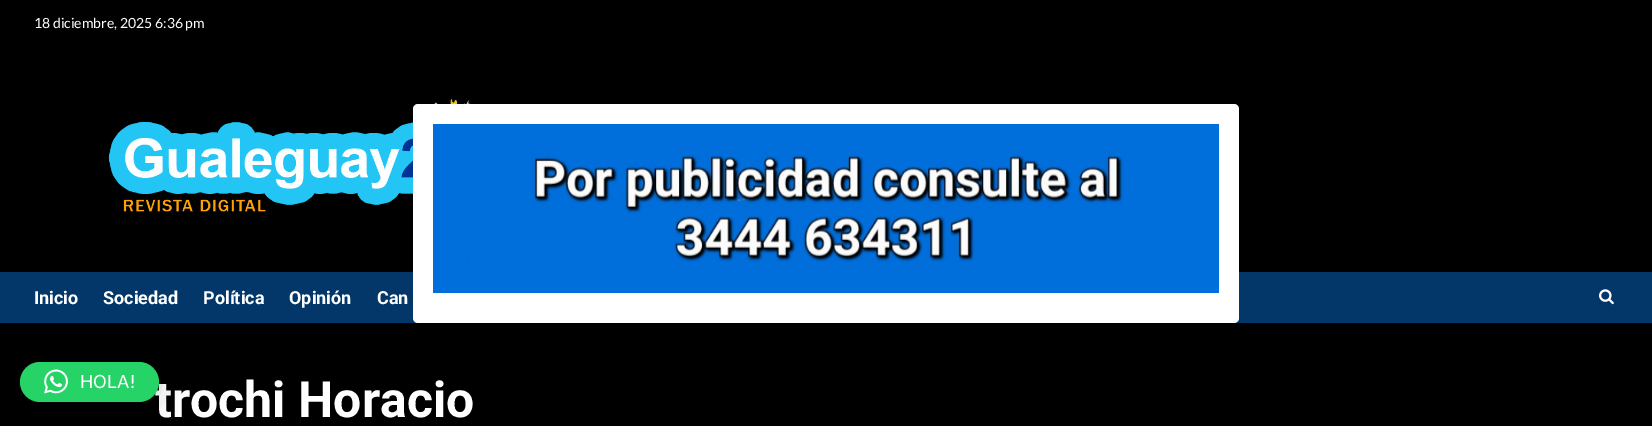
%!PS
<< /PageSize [1652 426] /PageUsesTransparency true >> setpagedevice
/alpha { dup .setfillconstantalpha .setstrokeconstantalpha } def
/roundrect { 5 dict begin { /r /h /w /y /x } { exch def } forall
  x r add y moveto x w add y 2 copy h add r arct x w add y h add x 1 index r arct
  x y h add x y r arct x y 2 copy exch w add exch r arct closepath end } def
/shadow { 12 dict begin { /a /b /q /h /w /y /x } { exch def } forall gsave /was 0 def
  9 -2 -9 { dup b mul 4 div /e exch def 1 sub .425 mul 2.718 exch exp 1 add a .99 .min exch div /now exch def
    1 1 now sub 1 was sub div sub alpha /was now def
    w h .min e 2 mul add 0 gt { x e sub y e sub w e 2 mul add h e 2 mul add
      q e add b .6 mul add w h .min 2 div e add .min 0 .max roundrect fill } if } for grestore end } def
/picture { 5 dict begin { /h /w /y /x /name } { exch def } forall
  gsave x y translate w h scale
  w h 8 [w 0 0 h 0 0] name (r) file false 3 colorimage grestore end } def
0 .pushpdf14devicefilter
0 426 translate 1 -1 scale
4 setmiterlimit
0 setgray
0 0 1652 426 rectfill
/Lato-Regular [14 0 0 -14 0 0] selectfont
1 setgray
34 28 moveto (18 diciembre, 2025 6:36 pm) show
(img1.rgb) 108 99 362 113 picture
0.012 0.212 0.412 setrgbcolor
0 272 1652 51 rectfill
/Roboto-Bold [18 0 0 -18 0 0] selectfont
1 setgray
34 304 moveto (Inicio) show
103 304 moveto (Sociedad) show
203 304 moveto (Política) show
289 304 moveto (Opinión) show
377 304 moveto (Can) show
(img2.rgb) 1599 289 15 16 picture
413 104 826 219 5 roundrect fill
(img3.rgb) 433 124 786 169 picture
/Roboto-Bold [50 0 0 -50 0 0] selectfont
155 417 moveto (trochi Horacio) show
0 setgray
20 364 139 40 20 16 0.16 shadow
0.145 0.827 0.4 setrgbcolor
20 362 139 40 20 roundrect fill
(img4.rgb) 44 369 24 25 picture
/Inter-Regular [18 0 0 -18 0 0] selectfont
1 setgray
80 388 moveto (HOLA!) show
.poppdf14devicefilter showpage
